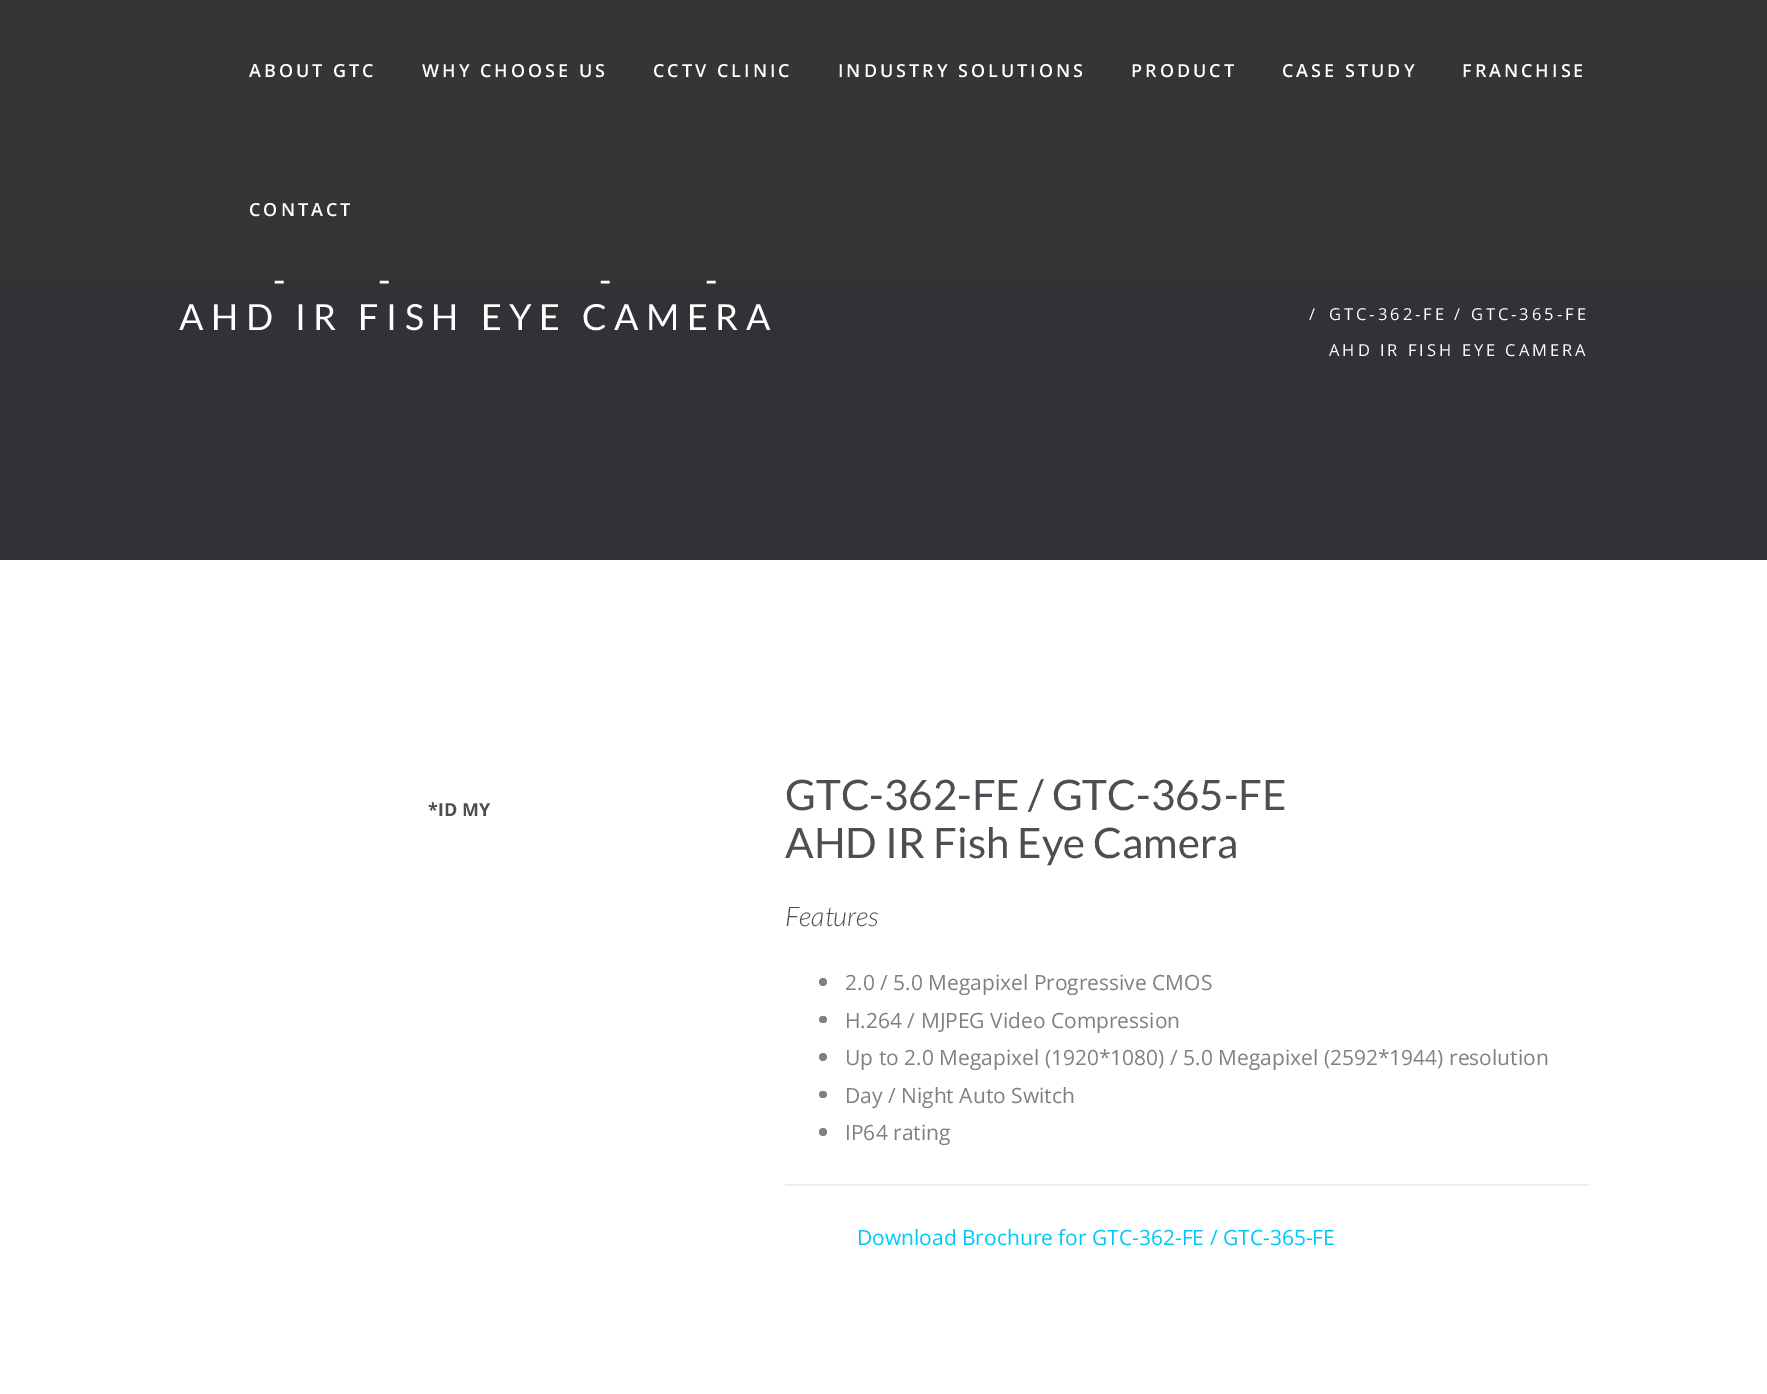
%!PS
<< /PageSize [1767 1394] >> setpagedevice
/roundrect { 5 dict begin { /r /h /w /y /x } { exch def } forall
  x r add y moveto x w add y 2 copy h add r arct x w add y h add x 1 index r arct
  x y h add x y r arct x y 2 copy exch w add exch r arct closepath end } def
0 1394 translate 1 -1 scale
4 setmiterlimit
1 setgray
0 0 1767 1394 rectfill
0.208 setgray
0 0 1767 279 rectfill
/OpenSans-SemiBold [18 0 0 -18 0 0] selectfont
1 setgray
249 77 moveto 3 0 (ABOUT GTC) ashow
422 77 moveto 3 0 (WHY CHOOSE US) ashow
653 77 moveto 3 0 (CCTV CLINIC) ashow
838 77 moveto 3 0 (INDUSTRY SOLUTIONS) ashow
1131 77 moveto 3 0 (PRODUCT) ashow
1282 77 moveto 3 0 (CASE STUDY) ashow
1462 77 moveto 3 0 (FRANCHISE) ashow
249 216 moveto 3 0 (CONTACT) ashow
0.188 0.196 0.212 setrgbcolor
0 279 1767 281 rectfill
/Lato-Regular [36 0 0 -36 0 0] selectfont
1 setgray
273 293 moveto 7.5 0 (-) ashow
378 293 moveto 7.5 0 (-) ashow
599 293 moveto 7.5 0 (-) ashow
705 293 moveto 7.5 0 (-) ashow
179 330 moveto 7.5 0 (AHD IR FISH EYE CAMERA) ashow
/OpenSans-Regular [16.5 0 0 -16.5 0 0] selectfont
1309 320 moveto 3 0 (/) ashow
1329 320 moveto 3 0 (GTC-362-FE / GTC-365-FE) ashow
1329 356 moveto 3 0 (AHD IR FISH EYE CAMERA) ashow
/OpenSans-Bold [18 0 0 -18 0 0] selectfont
0.294 0.306 0.325 setrgbcolor
428 816 moveto (*ID MY) show
/Lato-Regular [42 0 0 -42 0 0] selectfont
785 810 moveto (GTC-362-FE / GTC-365-FE) show
785 858 moveto (AHD IR Fish Eye Camera) show
/Lato-LightItalic [27 0 0 -27 0 0] selectfont
785 926 moveto (Features) show
0.494 0.502 0.51 setrgbcolor
newpath 823 982 4 0 360 arc closepath fill
/OpenSans-Regular [21 0 0 -21 0 0] selectfont
845 990 moveto (2.0 / 5.0 Megapixel Progressive CMOS) show
819 1016 8 7 3.5 roundrect fill
845 1028 moveto (H.264 / MJPEG Video Compression) show
newpath 823 1057 4 0 360 arc closepath fill
845 1065 moveto (Up to 2.0 Megapixel \(1920*1080\) / 5.0 Megapixel \(2592*1944\) resolution) show
819 1091 8 7 3.5 roundrect fill
845 1103 moveto (Day / Night Auto Switch) show
newpath 823 1132 4 0 360 arc closepath fill
845 1140 moveto (IP64 rating) show
0.933 setgray
785 1184 804 2 rectfill
0 0.78 0.976 setrgbcolor
857 1245 moveto (Download Brochure for GTC-362-FE / GTC-365-FE) show
showpage
